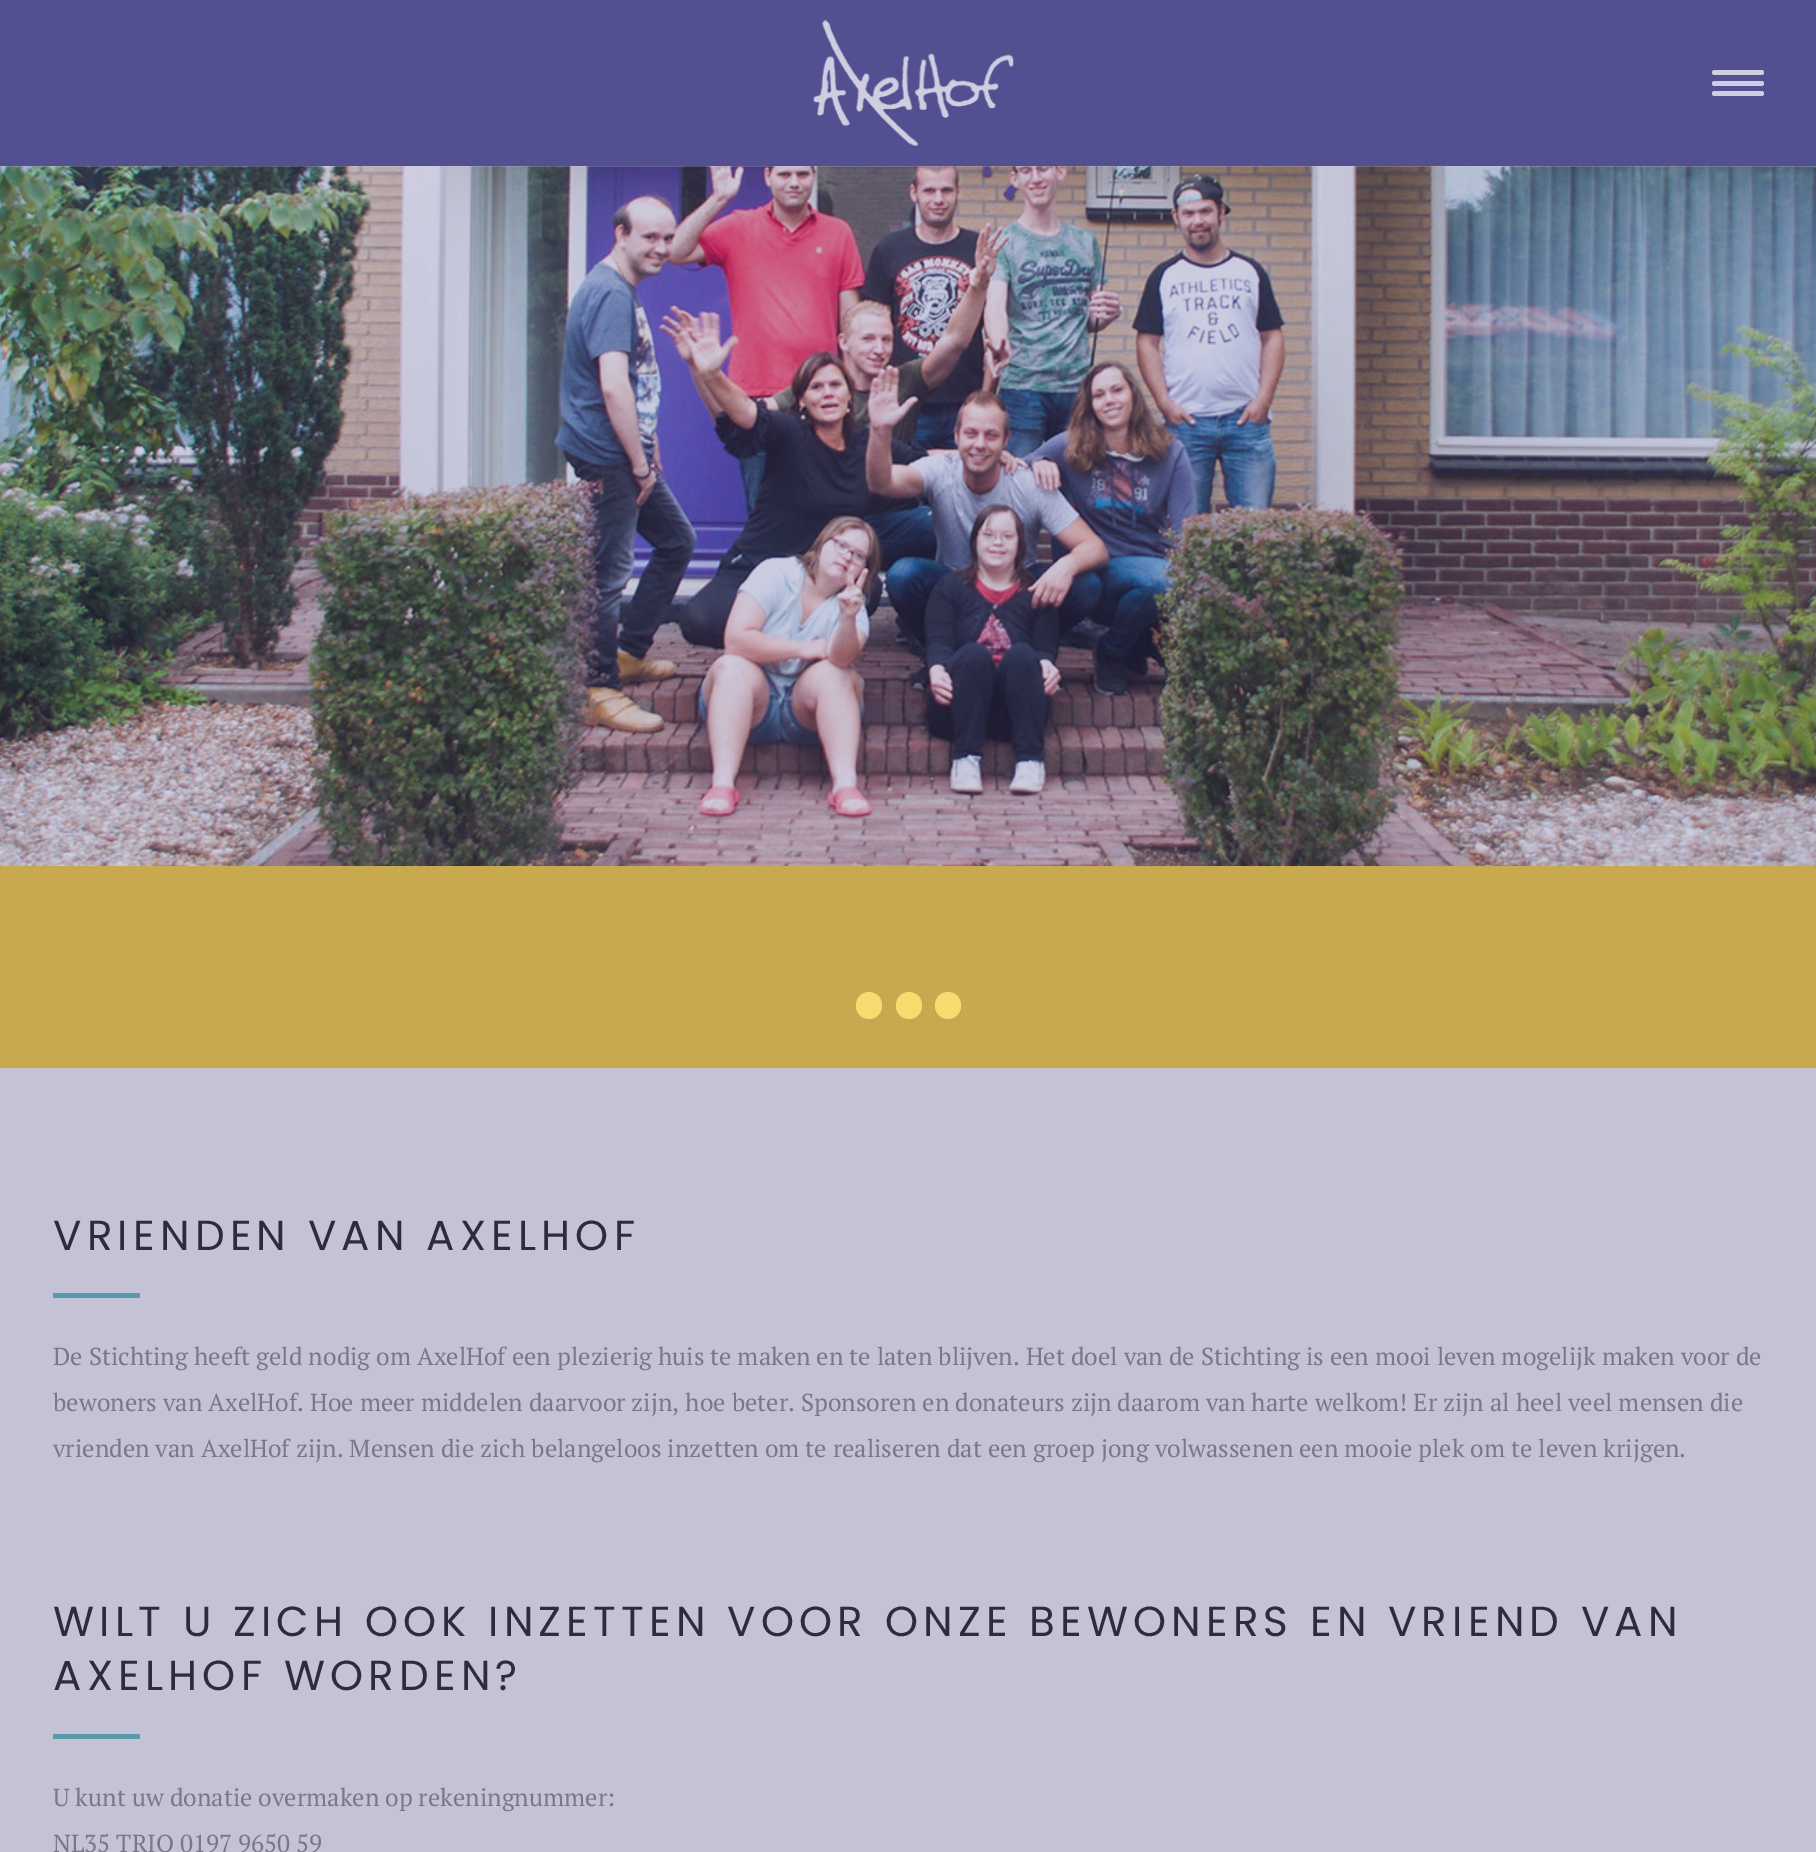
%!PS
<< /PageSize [1816 1852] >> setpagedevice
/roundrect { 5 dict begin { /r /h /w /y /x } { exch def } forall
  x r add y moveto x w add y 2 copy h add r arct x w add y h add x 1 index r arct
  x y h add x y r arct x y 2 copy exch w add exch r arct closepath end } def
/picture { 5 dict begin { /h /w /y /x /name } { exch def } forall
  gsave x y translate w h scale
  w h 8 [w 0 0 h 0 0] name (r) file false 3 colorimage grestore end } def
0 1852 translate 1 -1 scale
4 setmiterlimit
0.769 0.765 0.839 setrgbcolor
0 0 1816 1852 rectfill
0.788 0.663 0.314 setrgbcolor
0 866 1816 202 rectfill
0.976 0.855 0.431 setrgbcolor
856 992 26 27 13 roundrect fill
896 992 26 27 13 roundrect fill
935 992 26 27 13 roundrect fill
0.325 0.314 0.573 setrgbcolor
0 0 1816 166 rectfill
(img1.rgb) 813 19 201 127 picture
0.812 0.808 0.878 setrgbcolor
1712 70 52 5 2.5 roundrect fill
1712 81 52 5 2.5 roundrect fill
1712 91 52 5 2.5 roundrect fill
(img2.rgb) 0 166 1816 700 picture
/Poppins-Regular [42 0 0 -42 0 0] selectfont
0.176 0.173 0.243 setrgbcolor
53 1250 moveto 5.25 0 (VRIENDEN VAN AXELHOF) ashow
0.349 0.604 0.678 setrgbcolor
53 1293 87 5 rectfill
/PTSerif-Regular [24.5 0 0 -24.5 0 0] selectfont
0.475 0.471 0.545 setrgbcolor
53 1365 moveto (De Stichting heeft geld nodig om AxelHof een plezierig huis te maken en te laten blijven. Het doel van de Stichting is een mooi leven mogelijk maken voor de) show
53 1411 moveto (bewoners van AxelHof. Hoe meer middelen daarvoor zijn, hoe beter. Sponsoren en donateurs zijn daarom van harte welkom! Er zijn al heel veel mensen die) show
53 1457 moveto (vrienden van AxelHof zijn. Mensen die zich belangeloos inzetten om te realiseren dat een groep jong volwassenen een mooie plek om te leven krijgen.) show
/Poppins-Regular [42 0 0 -42 0 0] selectfont
0.176 0.173 0.243 setrgbcolor
53 1636 moveto 5.25 0 (WILT U ZICH OOK INZETTEN VOOR ONZE BEWONERS EN VRIEND VAN) ashow
53 1690 moveto 5.25 0 (AXELHOF WORDEN?) ashow
0.349 0.604 0.678 setrgbcolor
53 1734 87 5 rectfill
/PTSerif-Regular [24.5 0 0 -24.5 0 0] selectfont
0.475 0.471 0.545 setrgbcolor
53 1806 moveto (U kunt uw donatie overmaken op rekeningnummer:) show
53 1852 moveto (NL35 TRIO 0197 9650 59) show
showpage
